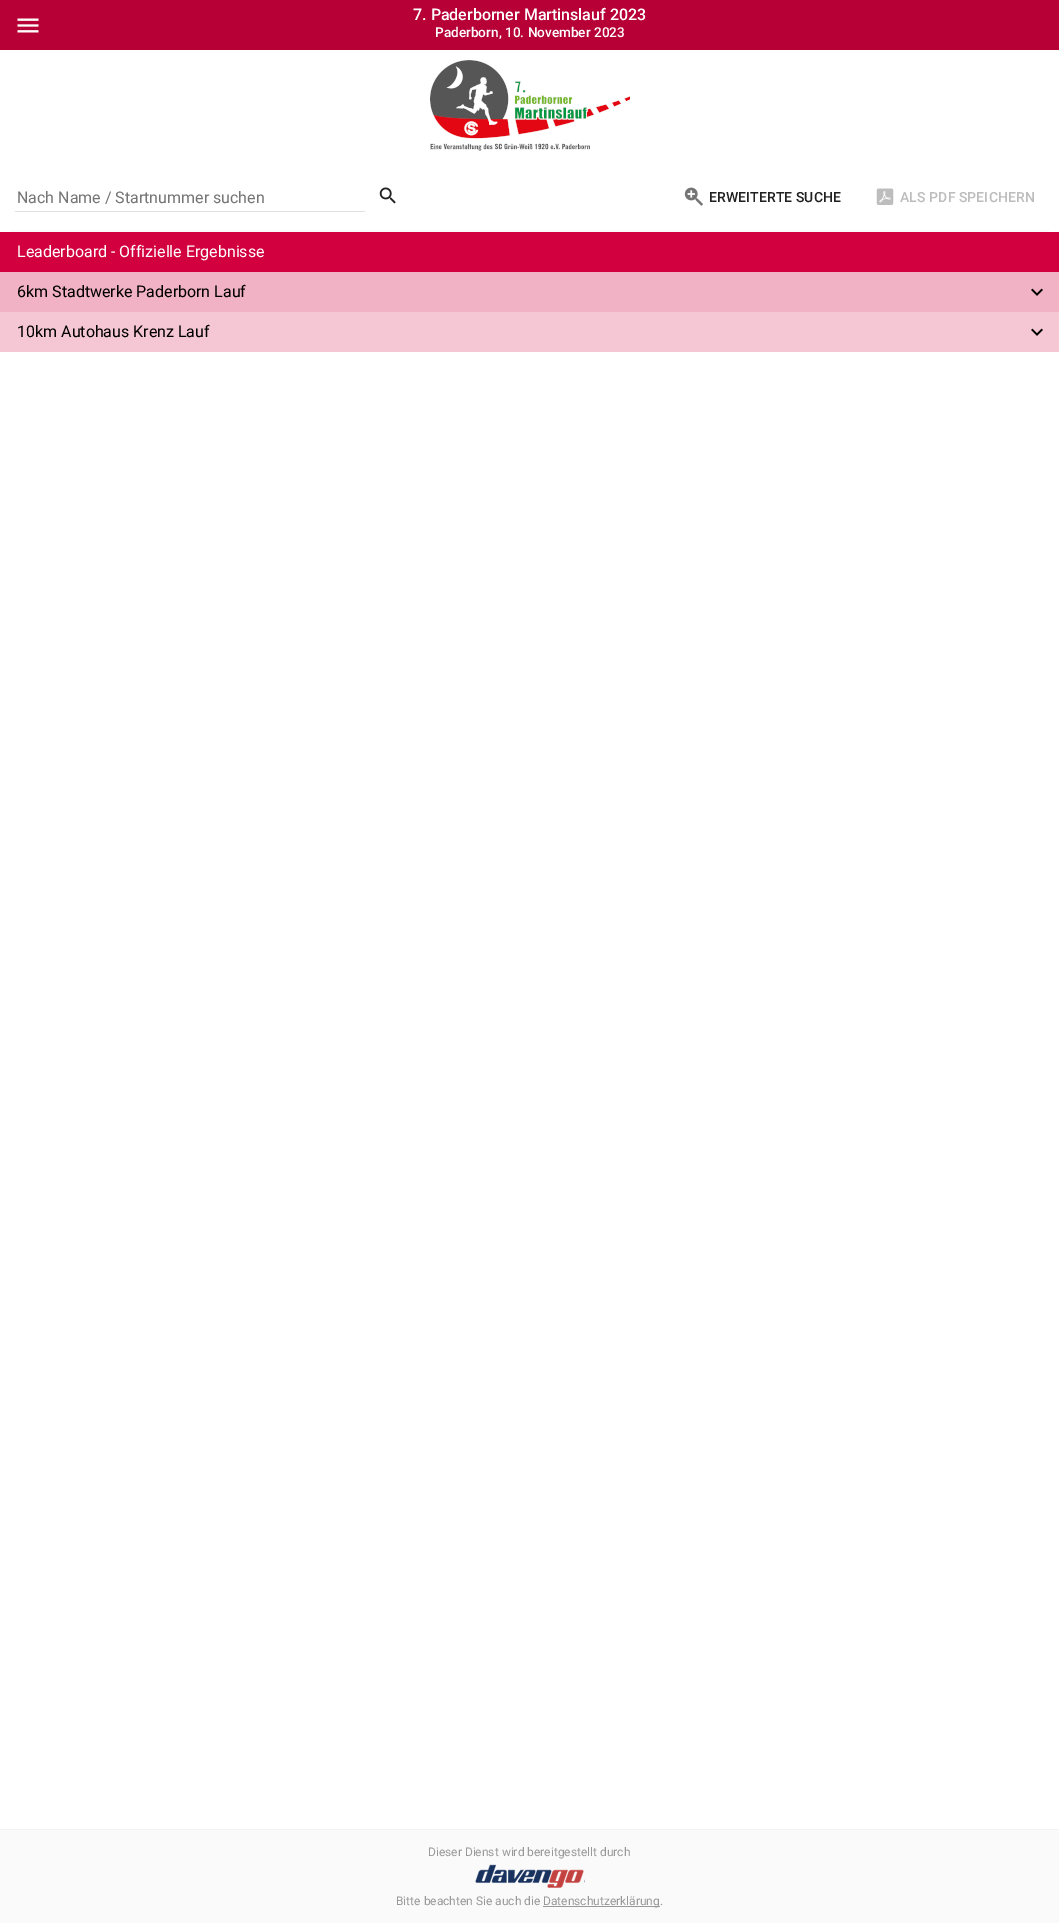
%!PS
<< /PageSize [1059 1923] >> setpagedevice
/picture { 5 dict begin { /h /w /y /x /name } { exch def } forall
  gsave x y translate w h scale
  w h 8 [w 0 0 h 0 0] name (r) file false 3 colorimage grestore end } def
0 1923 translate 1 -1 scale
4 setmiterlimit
1 setgray
0 0 1059 1923 rectfill
0.718 0 0.212 setrgbcolor
0 0 1059 50 rectfill
(img1.rgb) 17 18 22 15 picture
/Roboto-Medium [16 0 0 -16 0 0] selectfont
1 setgray
413 20 moveto (7. Paderborner Martinslauf 2023) show
/Roboto-Medium [13.6 0 0 -13.6 0 0] selectfont
435 37 moveto (Paderborn, 10. November 2023) show
(img2.rgb) 430 60 200 91 picture
0.98 setgray
10 230 1039 2 rectfill
0.878 setgray
15 211 350 1 rectfill
/Roboto-Regular [16 0 0 -16 0 0] selectfont
0.459 setgray
17 203 moveto (Nach Name / Startnummer suchen) show
(img3.rgb) 379 187 17 17 picture
(img4.rgb) 684 187 19 19 picture
/Roboto-Medium [14 0 0 -14 0 0] selectfont
0.129 setgray
709 202 moveto 0.1 0 (ERWEITERTE SUCHE) ashow
(img5.rgb) 876 188 18 17 picture
0.741 setgray
900 202 moveto 0.1 0 (ALS PDF SPEICHERN) ashow
0.824 0 0.243 setrgbcolor
0 232 1059 40 rectfill
/Roboto-Regular [16 0 0 -16 0 0] selectfont
1 setgray
17 257 moveto (Leaderboard - Offizielle Ergebnisse) show
0.945 0.698 0.773 setrgbcolor
0 272 1059 40 rectfill
0 setgray
17 297 moveto (6km Stadtwerke Paderborn Lauf) show
(img6.rgb) 1031 288 12 8 picture
0.961 0.776 0.831 setrgbcolor
0 312 1059 40 rectfill
0 setgray
17 337 moveto (10km Autohaus Krenz Lauf) show
(img7.rgb) 1031 328 12 8 picture
0.98 setgray
0 1830 1059 93 rectfill
0.953 setgray
0 1829 1059 1 rectfill
/Roboto-Regular [12 0 0 -12 0 0] selectfont
0.6 setgray
428 1856 moveto (Dieser Dienst wird bereitgestellt durch) show
(img8.rgb) 475 1864 110 24 picture
396 1905 moveto (Bitte beachten Sie auch die) show
543 1906 117 1 rectfill
543 1905 moveto (Datenschutzerklärung.) show
showpage
